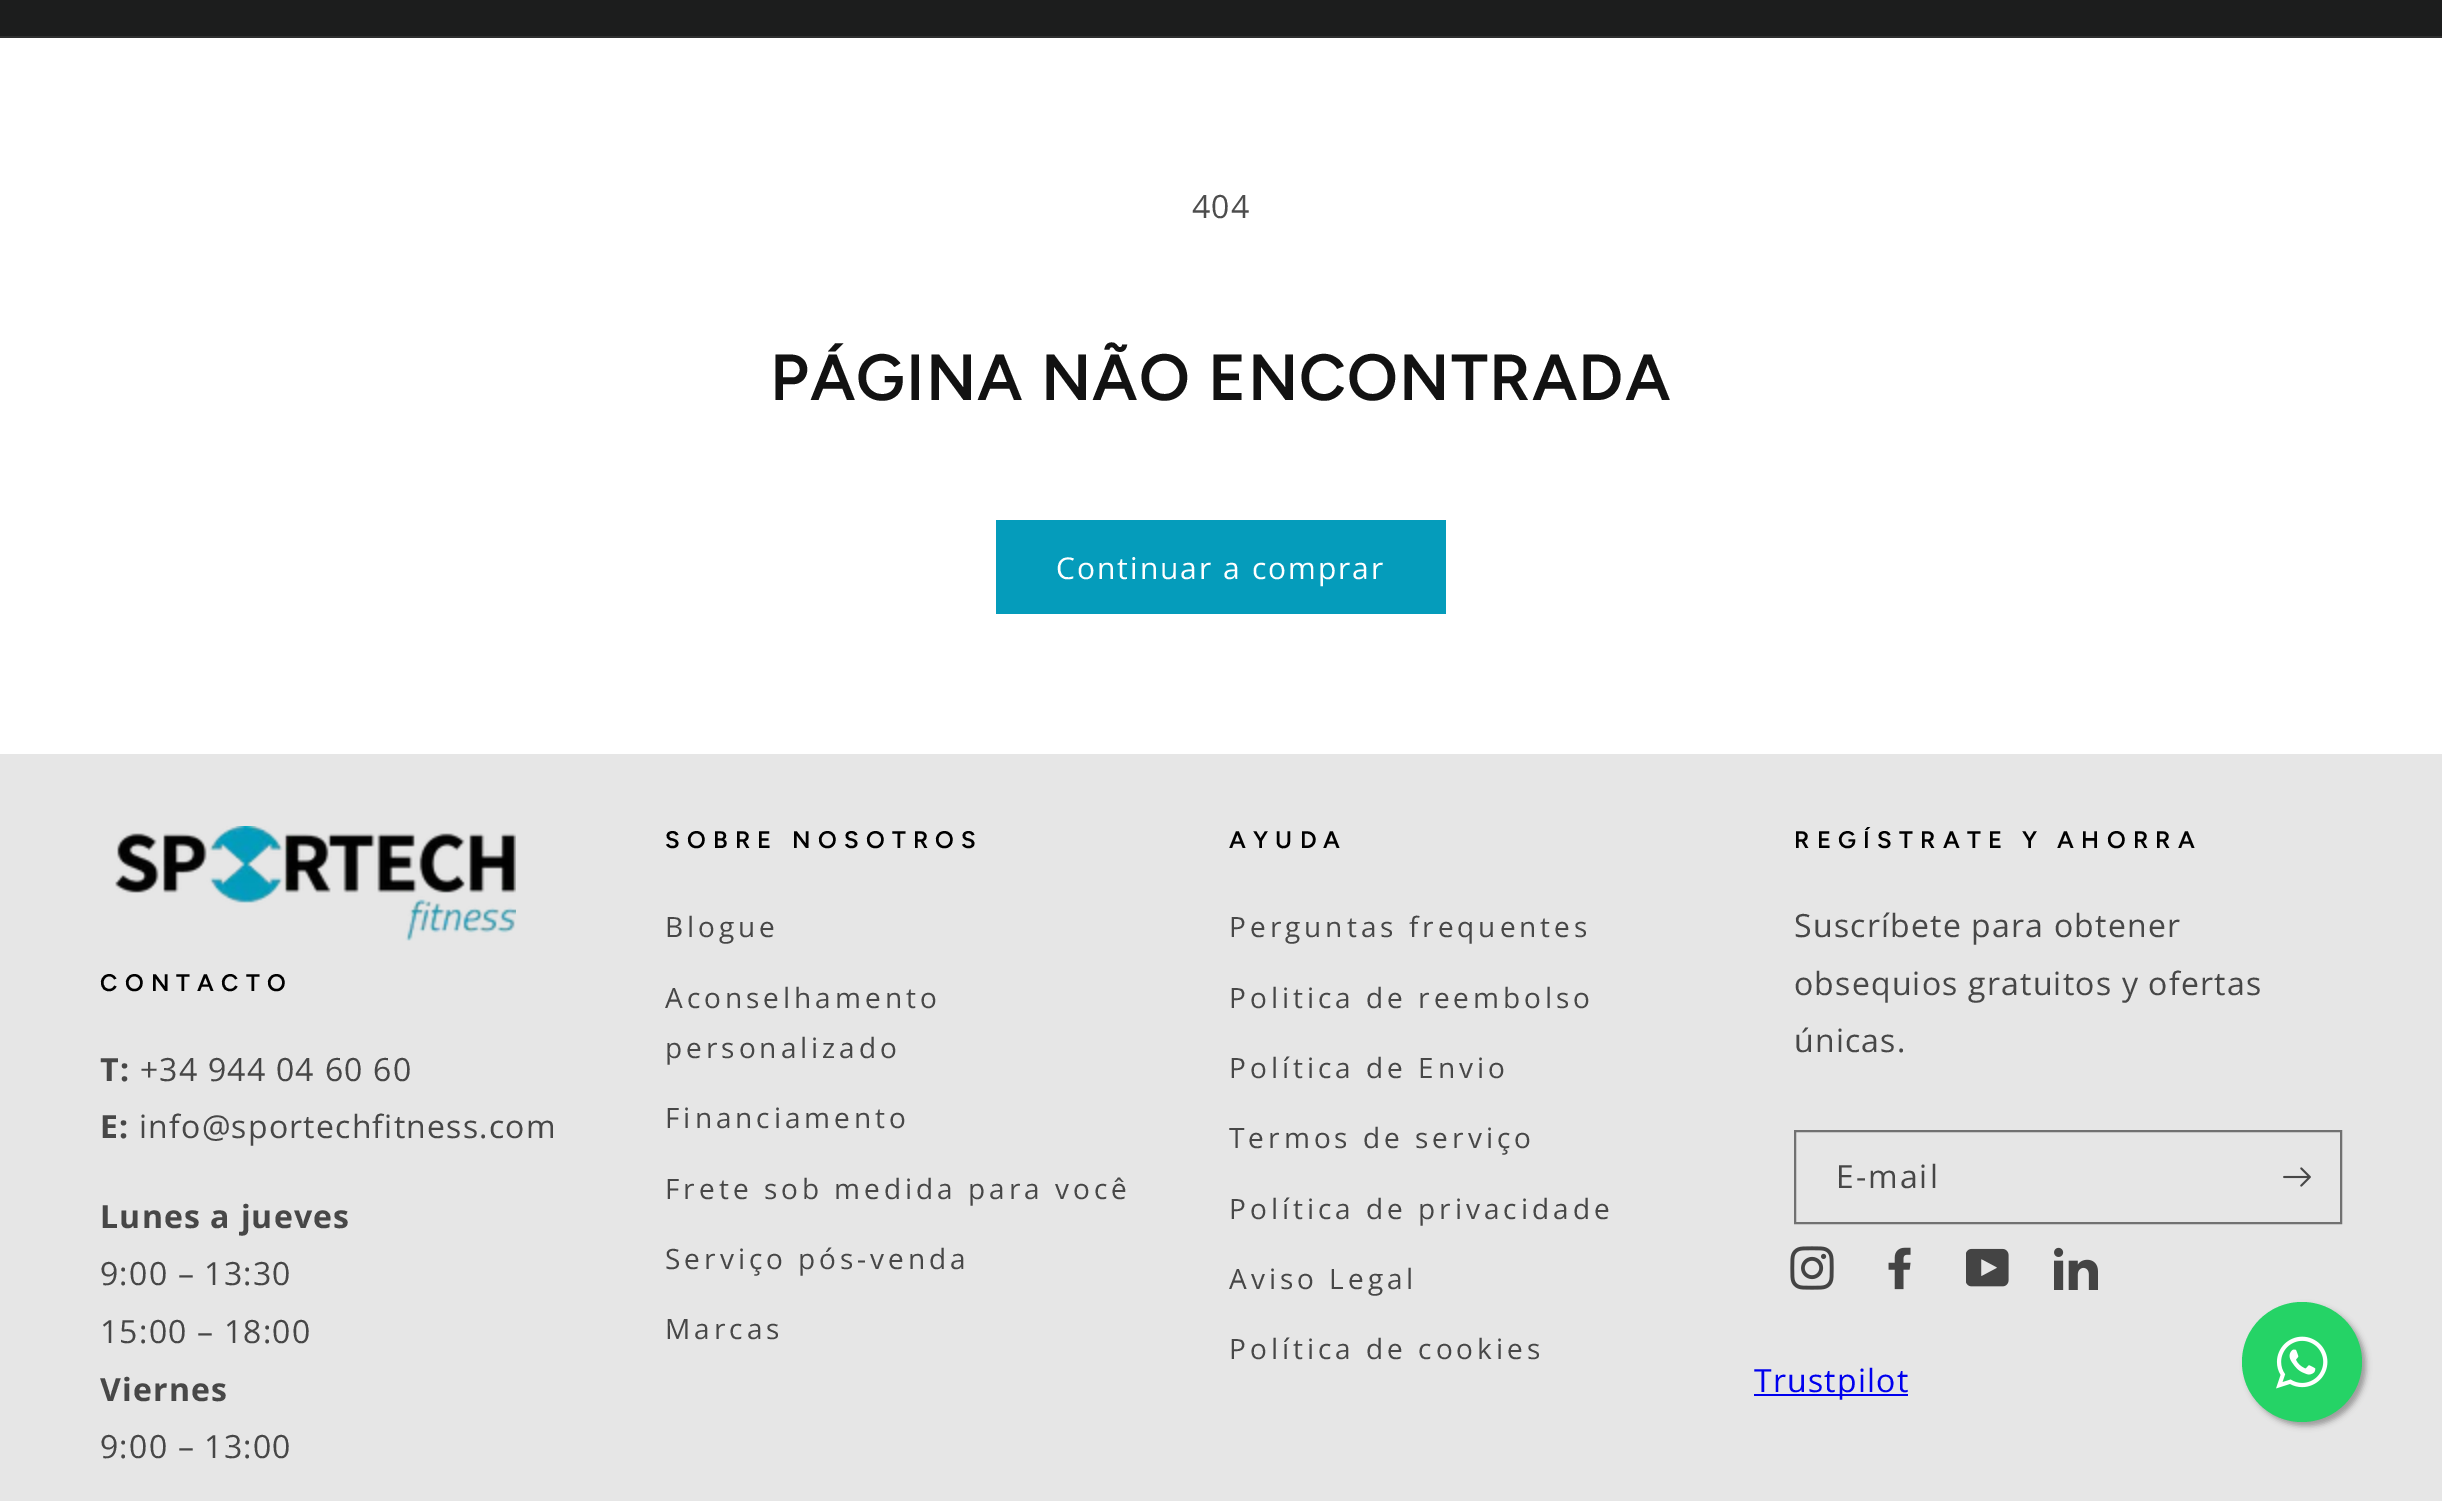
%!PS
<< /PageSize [2442 1501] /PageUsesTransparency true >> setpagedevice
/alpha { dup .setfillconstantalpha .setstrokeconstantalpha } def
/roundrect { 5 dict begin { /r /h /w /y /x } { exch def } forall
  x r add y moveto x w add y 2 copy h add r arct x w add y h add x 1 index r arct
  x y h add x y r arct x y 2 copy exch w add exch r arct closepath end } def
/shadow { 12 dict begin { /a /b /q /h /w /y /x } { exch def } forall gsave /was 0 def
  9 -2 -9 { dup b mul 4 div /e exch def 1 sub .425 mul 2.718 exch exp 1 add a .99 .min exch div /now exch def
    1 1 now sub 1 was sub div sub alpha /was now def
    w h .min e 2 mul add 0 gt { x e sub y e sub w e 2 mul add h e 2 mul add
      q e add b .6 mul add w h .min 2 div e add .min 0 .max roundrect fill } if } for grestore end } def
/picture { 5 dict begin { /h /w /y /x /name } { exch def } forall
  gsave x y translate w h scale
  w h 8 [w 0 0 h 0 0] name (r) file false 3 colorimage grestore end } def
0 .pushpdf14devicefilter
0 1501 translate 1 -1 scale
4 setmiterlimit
1 setgray
0 0 2442 1501 rectfill
0.11 0.114 0.114 setrgbcolor
0 0 2442 36 rectfill
0.18 0.184 0.184 setrgbcolor
0 36 2442 2 rectfill
/OpenSans-Regular [32 0 0 -32 0 0] selectfont
0.302 setgray
1192 218 moveto 1.2 0 (404) ashow
/Figtree-SemiBold [65 0 0 -65 0 0] selectfont
0.071 setgray
770 400 moveto 1.2 0 (PÁGINA NÃO ENCONTRADA) ashow
0.02 0.612 0.733 setrgbcolor
996 520 450 94 rectfill
/OpenSans-Regular [30 0 0 -30 0 0] selectfont
1 setgray
1056 579 moveto 2 0 (Continuar a comprar) ashow
0.902 setgray
0 754 2442 747 rectfill
(img1.rgb) 115 826 401 115 picture
/Figtree-SemiBold [24 0 0 -24 0 0] selectfont
0 setgray
100 991 moveto 7.25 0 (CONTACTO) ashow
/OpenSans-Bold [32 0 0 -32 0 0] selectfont
0.278 setgray
100 1081 moveto 1.2 0 (T:) ashow
/OpenSans-Regular [32 0 0 -32 0 0] selectfont
140 1081 moveto 1.2 0 (+34 944 04 60 60) ashow
/OpenSans-Bold [32 0 0 -32 0 0] selectfont
100 1138 moveto 1.2 0 (E:) ashow
/OpenSans-Regular [32 0 0 -32 0 0] selectfont
139 1138 moveto 1.2 0 (info@sportechfitness.com) ashow
/OpenSans-Bold [32 0 0 -32 0 0] selectfont
100 1228 moveto 1.2 0 (Lunes a jueves) ashow
/OpenSans-Regular [32 0 0 -32 0 0] selectfont
100 1285 moveto 1.2 0 (9:00 – 13:30) ashow
100 1343 moveto 1.2 0 (15:00 – 18:00) ashow
/OpenSans-Bold [32 0 0 -32 0 0] selectfont
100 1401 moveto 1.2 0 (Viernes) ashow
/OpenSans-Regular [32 0 0 -32 0 0] selectfont
100 1458 moveto 1.2 0 (9:00 – 13:00) ashow
/Figtree-SemiBold [24 0 0 -24 0 0] selectfont
0 setgray
665 848 moveto 7.25 0 (SOBRE NOSOTROS) ashow
/OpenSans-Regular [28 0 0 -28 0 0] selectfont
0.278 setgray
665 937 moveto 4 0 (Blogue) ashow
665 1008 moveto 4 0 (Aconselhamento) ashow
665 1058 moveto 4 0 (personalizado) ashow
665 1128 moveto 4 0 (Financiamento) ashow
665 1199 moveto 4 0 (Frete sob medida para você) ashow
665 1269 moveto 4 0 (Serviço pós-venda) ashow
665 1339 moveto 4 0 (Marcas) ashow
/Figtree-SemiBold [24 0 0 -24 0 0] selectfont
0 setgray
1229 848 moveto 7.25 0 (AYUDA) ashow
/OpenSans-Regular [28 0 0 -28 0 0] selectfont
0.278 setgray
1229 937 moveto 4 0 (Perguntas frequentes) ashow
1229 1008 moveto 4 0 (Politica de reembolso) ashow
1229 1078 moveto 4 0 (Política de Envio) ashow
1229 1148 moveto 4 0 (Termos de serviço) ashow
1229 1219 moveto 4 0 (Política de privacidade) ashow
1229 1289 moveto 4 0 (Aviso Legal) ashow
1229 1359 moveto 4 0 (Política de cookies) ashow
/Figtree-SemiBold [24 0 0 -24 0 0] selectfont
0 setgray
1794 848 moveto 7.25 0 (REGÍSTRATE Y AHORRA) ashow
/OpenSans-Regular [32 0 0 -32 0 0] selectfont
0.278 setgray
1794 937 moveto 1.2 0 (Suscríbete para obtener) ashow
1794 995 moveto 1.2 0 (obsequios gratuitos y ofertas) ashow
1794 1052 moveto 1.2 0 (únicas.) ashow
0.443 setgray
2 setlinewidth
1795 1131 546 92 rectstroke
0.278 setgray
1836 1188 moveto 2 0 (E-mail) ashow
(img2.rgb) 2283 1167 28 20 picture
(img3.rgb) 1790 1246 44 44 picture
(img4.rgb) 1888 1247 23 43 picture
(img5.rgb) 1966 1248 43 39 picture
(img6.rgb) 2054 1247 44 43 picture
0 0 0.933 setrgbcolor
1754 1394 154 2 rectfill
1754 1392 moveto 1.2 0 (Trustpilot) ashow
0.6 setgray
2246 1306 120 120 60 3 1 shadow
0.145 0.827 0.4 setrgbcolor
newpath 2302 1362 60 0 360 arc closepath fill
(img7.rgb) 2276 1336 52 53 picture
.poppdf14devicefilter showpage
